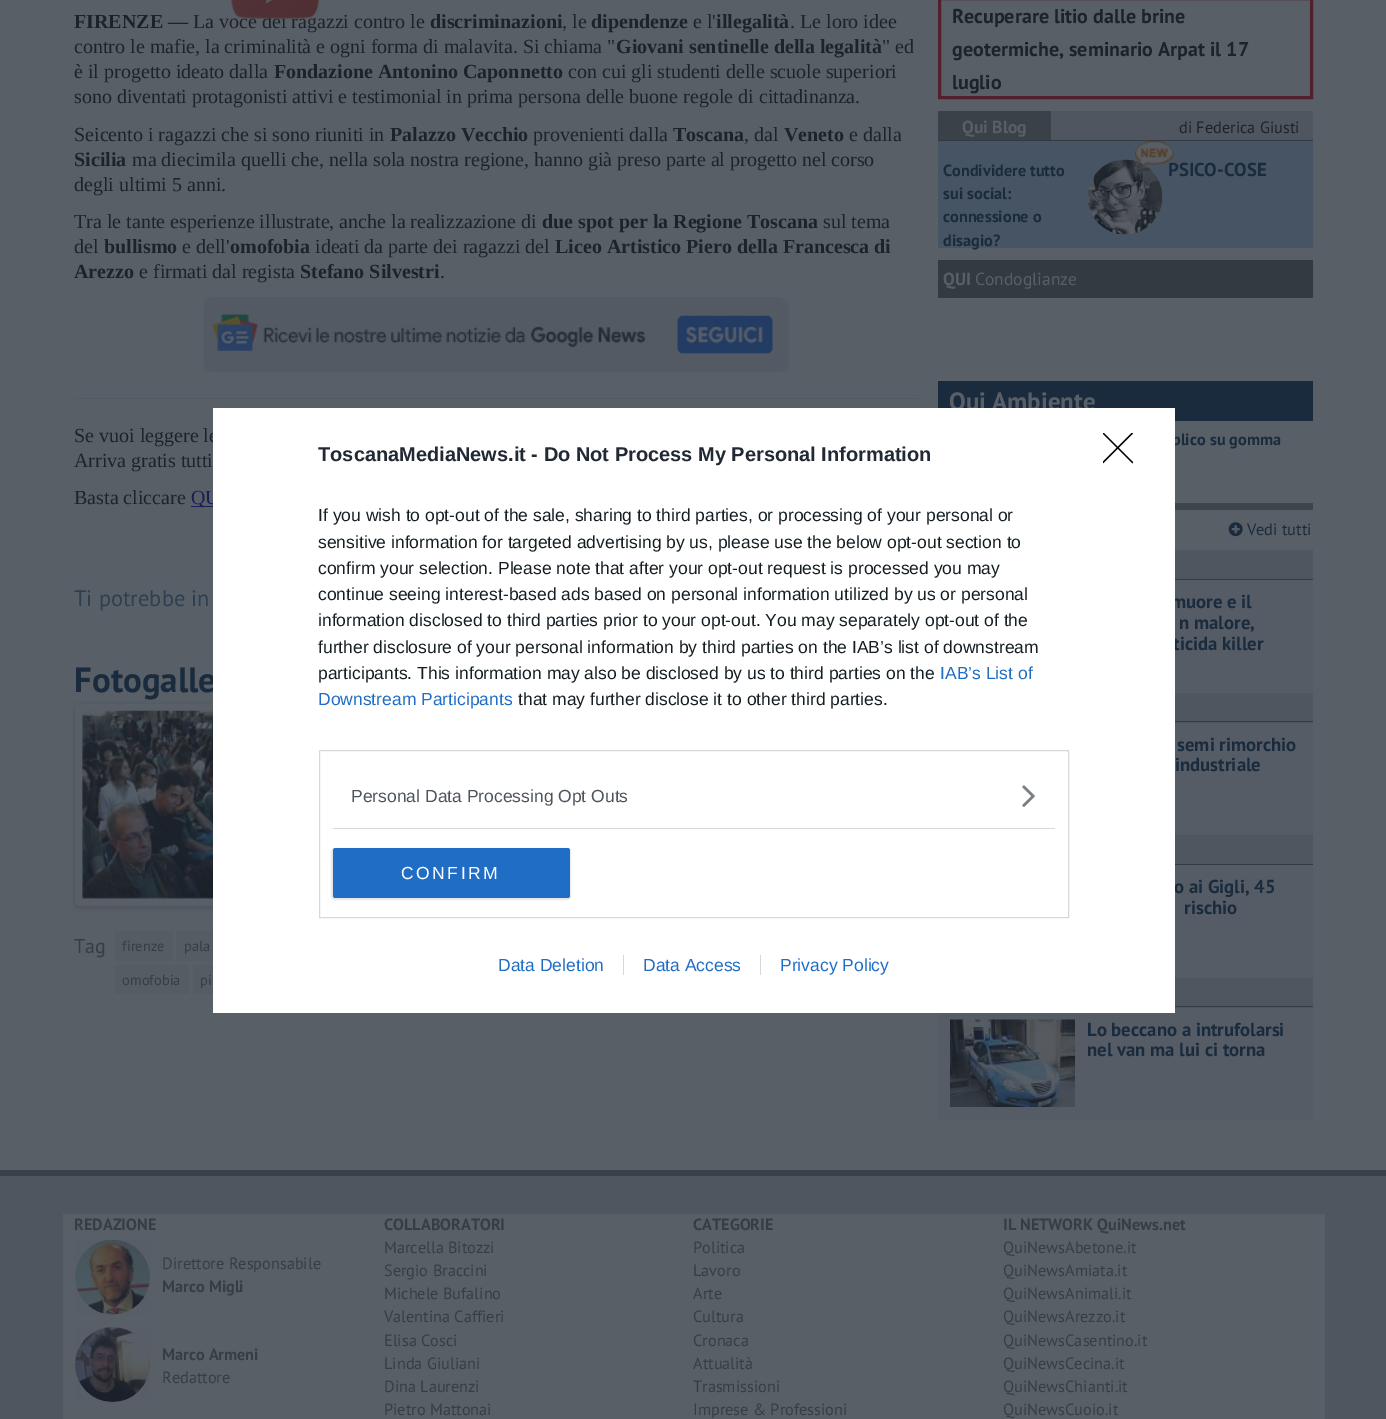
%!PS
<< /PageSize [1386 1419] /PageUsesTransparency true >> setpagedevice
/alpha { dup .setfillconstantalpha .setstrokeconstantalpha } def
/roundrect { 5 dict begin { /r /h /w /y /x } { exch def } forall
  x r add y moveto x w add y 2 copy h add r arct x w add y h add x 1 index r arct
  x y h add x y r arct x y 2 copy exch w add exch r arct closepath end } def
/shadow { 12 dict begin { /a /b /q /h /w /y /x } { exch def } forall gsave /was 0 def
  9 -2 -9 { dup b mul 4 div /e exch def 1 sub .425 mul 2.718 exch exp 1 add a .99 .min exch div /now exch def
    1 1 now sub 1 was sub div sub alpha /was now def
    w h .min e 2 mul add 0 gt { x e sub y e sub w e 2 mul add h e 2 mul add
      q e add b .6 mul add w h .min 2 div e add .min 0 .max roundrect fill } if } for grestore end } def
/picture { 5 dict begin { /h /w /y /x /name } { exch def } forall
  gsave x y translate w h scale
  w h 8 [w 0 0 h 0 0] name (r) file false 3 colorimage grestore end } def
0 .pushpdf14devicefilter
0 1419 translate 1 -1 scale
4 setmiterlimit
0.349 0.373 0.404 setrgbcolor
0 0 1386 1419 rectfill
/LiberationSerif-Regular [20 0 0 -20 0 0] selectfont
0.114 0.137 0.169 setrgbcolor
193 28 moveto (La voce dei ragazzi contro le) show
(img1.rgb) 230 0 90 19 picture
/LiberationSerif-Bold [20 0 0 -20 0 0] selectfont
74 28 moveto (FIRENZE —) show
430 28 moveto (discriminazioni) show
/LiberationSerif-Regular [20 0 0 -20 0 0] selectfont
562 28 moveto (, le) show
/LiberationSerif-Bold [20 0 0 -20 0 0] selectfont
591 28 moveto (dipendenze) show
/LiberationSerif-Regular [20 0 0 -20 0 0] selectfont
693 28 moveto (e l') show
/LiberationSerif-Bold [20 0 0 -20 0 0] selectfont
716 28 moveto (illegalità) show
/LiberationSerif-Regular [20 0 0 -20 0 0] selectfont
790 28 moveto (. Le loro idee) show
74 53 moveto (contro le mafie, la criminalità e ogni forma di malavita. Si chiama ") show
/LiberationSerif-Bold [20 0 0 -20 0 0] selectfont
616 53 moveto (Giovani sentinelle della legalità) show
/LiberationSerif-Regular [20 0 0 -20 0 0] selectfont
882 53 moveto (" ed) show
74 78 moveto (è il progetto ideato dalla) show
/LiberationSerif-Bold [20 0 0 -20 0 0] selectfont
274 78 moveto (Fondazione Antonino Caponnetto) show
/LiberationSerif-Regular [20 0 0 -20 0 0] selectfont
568 78 moveto (con cui gli studenti delle scuole superiori) show
74 103 moveto (sono diventati protagonisti attivi e testimonial in prima persona delle buone regole di cittadinanza.) show
74 141 moveto (Seicento i ragazzi che si sono riuniti in) show
/LiberationSerif-Bold [20 0 0 -20 0 0] selectfont
390 141 moveto (Palazzo Vecchio) show
/LiberationSerif-Regular [20 0 0 -20 0 0] selectfont
533 141 moveto (provenienti dalla) show
/LiberationSerif-Bold [20 0 0 -20 0 0] selectfont
673 141 moveto (Toscana) show
/LiberationSerif-Regular [20 0 0 -20 0 0] selectfont
744 141 moveto (, dal) show
/LiberationSerif-Bold [20 0 0 -20 0 0] selectfont
784 141 moveto (Veneto) show
/LiberationSerif-Regular [20 0 0 -20 0 0] selectfont
849 141 moveto (e dalla) show
/LiberationSerif-Bold [20 0 0 -20 0 0] selectfont
74 166 moveto (Sicilia) show
/LiberationSerif-Regular [20 0 0 -20 0 0] selectfont
132 166 moveto (ma diecimila quelli che, nella sola nostra regione, hanno già preso parte al progetto nel corso) show
74 191 moveto (degli ultimi 5 anni.) show
74 228 moveto (Tra le tante esperienze illustrate, anche la realizzazione di) show
/LiberationSerif-Bold [20 0 0 -20 0 0] selectfont
542 228 moveto (due spot per la Regione Toscana) show
/LiberationSerif-Regular [20 0 0 -20 0 0] selectfont
823 228 moveto (sul tema) show
74 253 moveto (del) show
/LiberationSerif-Bold [20 0 0 -20 0 0] selectfont
104 253 moveto (bullismo) show
/LiberationSerif-Regular [20 0 0 -20 0 0] selectfont
182 253 moveto (e dell') show
/LiberationSerif-Bold [20 0 0 -20 0 0] selectfont
230 253 moveto (omofobia) show
/LiberationSerif-Regular [20 0 0 -20 0 0] selectfont
315 253 moveto (ideati da parte dei ragazzi del) show
/LiberationSerif-Bold [20 0 0 -20 0 0] selectfont
555 253 moveto (Liceo Artistico Piero della Francesca di) show
74 278 moveto (Arezzo) show
/LiberationSerif-Regular [20 0 0 -20 0 0] selectfont
139 278 moveto (e firmati dal regista) show
/LiberationSerif-Bold [20 0 0 -20 0 0] selectfont
300 278 moveto (Stefano Silvestri) show
/LiberationSerif-Regular [20 0 0 -20 0 0] selectfont
440 278 moveto (.) show
(img2.rgb) 203 297 586 75 picture
0.329 0.353 0.388 setrgbcolor
75 398 844 1 rectfill
0.114 0.137 0.169 setrgbcolor
74 442 moveto (Se vuoi leggere le) show
74 467 moveto (Arriva gratis tutti) show
74 504 moveto (Basta cliccare) show
0.098 0.122 0.337 setrgbcolor
191 506 22 1 rectfill
191 504 moveto (QU) show
/PTSans-Regular [22.5 0 0 -22.5 0 0] selectfont
0.176 0.251 0.318 setrgbcolor
74 606 moveto (Ti potrebbe in) show
/PTSans-Bold [35 0 0 -35 0 0] selectfont
0.098 0.169 0.239 setrgbcolor
74 692 moveto (Fotogalle) show
0.098 0.122 0.153 setrgbcolor
75 705 844 203 5 2.5 0.2 shadow
0.349 0.373 0.404 setrgbcolor
75 704 844 202 5 roundrect fill
(img3.rgb) 82 710 131 189 picture
/PTSans-Regular [20 0 0 -20 0 0] selectfont
0.216 0.239 0.271 setrgbcolor
74 953 moveto (Tag) show
0.337 0.361 0.392 setrgbcolor
115 931 58 30 rectfill
/PTSans-Regular [14.5 0 0 -14.5 0 0] selectfont
0.216 0.239 0.271 setrgbcolor
122 951 moveto (firenze) show
0.337 0.361 0.392 setrgbcolor
176 931 37 30 rectfill
0.216 0.239 0.271 setrgbcolor
184 951 moveto (pala) show
0.337 0.361 0.392 setrgbcolor
115 965 74 29 rectfill
0.216 0.239 0.271 setrgbcolor
122 985 moveto (omofobia) show
0.337 0.361 0.392 setrgbcolor
193 965 20 29 rectfill
0.216 0.239 0.271 setrgbcolor
200 985 moveto (pi) show
0.322 0.125 0.173 setrgbcolor
3 setlinewidth
939.5 -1.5 372 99 rectstroke
/PTSans-Bold [20 0 0 -20 0 0] selectfont
0.114 0.137 0.169 setrgbcolor
952 23 moveto (Recuperare litio dalle brine) show
952 56 moveto (geotermiche, seminario Arpat il 17) show
952 89 moveto (luglio) show
0.314 0.337 0.373 setrgbcolor
1051 111 262 29 rectfill
0.204 0.227 0.259 setrgbcolor
938 140 375 1 rectfill
0.231 0.255 0.286 setrgbcolor
938 111 113 29 rectfill
/PTSans-Bold [17.5 0 0 -17.5 0 0] selectfont
0.349 0.373 0.404 setrgbcolor
962 133 moveto (Qui Blog) show
/PTSans-Regular [16.25 0 0 -16.25 0 0] selectfont
0.114 0.137 0.169 setrgbcolor
1179 133 moveto (di Federica Giusti) show
0.278 0.329 0.388 setrgbcolor
938 141 375 107 rectfill
(img4.rgb) 1135 140 39 26 picture
/PTSans-Bold [16.25 0 0 -16.25 0 0] selectfont
0.098 0.169 0.239 setrgbcolor
943 176 moveto (Condividere tutto) show
943 199 moveto (sui social:) show
943 222 moveto (connessione o) show
943 246 moveto (disagio?) show
(img5.rgb) 1087 159 76 76 picture
/PTSans-Bold [18.75 0 0 -18.75 0 0] selectfont
1168 176 moveto (PSICO-COSE) show
0.204 0.227 0.259 setrgbcolor
938 260 375 38 rectfill
/PTSans-Bold [17.5 0 0 -17.5 0 0] selectfont
0.349 0.373 0.404 setrgbcolor
943 285 moveto (QUI) show
/PTSans-Regular [17.5 0 0 -17.5 0 0] selectfont
975 285 moveto (Condoglianze) show
0.098 0.169 0.239 setrgbcolor
938 381 375 40 rectfill
/PTSans-Bold [25 0 0 -25 0 0] selectfont
0.349 0.373 0.404 setrgbcolor
949 410 moveto (Qui Ambiente) show
/PTSans-Bold [16.25 0 0 -16.25 0 0] selectfont
0.098 0.169 0.239 setrgbcolor
1172 445 moveto (blico su gomma) show
0.247 0.271 0.302 setrgbcolor
1175 503 138 7 rectfill
(img6.rgb) 1228 522 15 15 picture
/PTSans-Regular [16.25 0 0 -16.25 0 0] selectfont
0.098 0.169 0.239 setrgbcolor
1247 535 moveto (Vedi tutti) show
0.314 0.337 0.373 setrgbcolor
1175 550 138 29 rectfill
0.204 0.227 0.259 setrgbcolor
1175 579 138 1 rectfill
0.337 0.361 0.396 setrgbcolor
1175 580 138 113 rectfill
/PTSans-Bold [18.75 0 0 -18.75 0 0] selectfont
0.098 0.169 0.239 setrgbcolor
1171 608 moveto (muore e il) show
1179 629 moveto (n malore,) show
1173 650 moveto (ticida killer) show
0.314 0.337 0.373 setrgbcolor
1175 693 138 30 rectfill
0.204 0.227 0.259 setrgbcolor
1175 721 138 1 rectfill
0.337 0.361 0.396 setrgbcolor
1175 723 138 112 rectfill
0.098 0.169 0.239 setrgbcolor
1177 751 moveto (semi rimorchio) show
1175 771 moveto (industriale) show
0.314 0.337 0.373 setrgbcolor
1175 835 138 29 rectfill
0.204 0.227 0.259 setrgbcolor
1175 864 138 1 rectfill
0.337 0.361 0.396 setrgbcolor
1175 865 138 113 rectfill
0.098 0.169 0.239 setrgbcolor
1174 893 moveto (o ai Gigli, 45) show
1184 914 moveto (rischio) show
0.314 0.337 0.373 setrgbcolor
1175 978 138 30 rectfill
0.204 0.227 0.259 setrgbcolor
1175 1006 138 1 rectfill
0.337 0.361 0.396 setrgbcolor
938 1008 375 112 rectfill
(img7.rgb) 950 1019 125 88 picture
0.098 0.169 0.239 setrgbcolor
1087 1036 moveto (Lo beccano a intrufolarsi) show
1087 1056 moveto (nel van ma lui ci torna) show
1 setgray
213 408 962 605 rectfill
/LiberationSans-Bold [20 0 0 -20 0 0] selectfont
0.129 0.161 0.204 setrgbcolor
318 461 moveto (ToscanaMediaNews.it - Do Not Process My Personal Information) show
/LiberationSans-Regular [17.5 0 0 -17.5 0 0] selectfont
0.078 0.118 0.137 setrgbcolor
318 521 moveto (If you wish to opt-out of the sale, sharing to third parties, or processing of your personal or) show
318 548 moveto (sensitive information for targeted advertising by us, please use the below opt-out section to) show
318 574 moveto (confirm your selection. Please note that after your opt-out request is processed you may) show
318 600 moveto (continue seeing interest-based ads based on personal information utilized by us or personal) show
318 626 moveto (information disclosed to third parties prior to your opt-out. You may separately opt-out of the) show
318 653 moveto (further disclosure of your personal information by third parties on the IAB’s list of downstream) show
318 679 moveto (participants. This information may also be disclosed by us to third parties on the) show
0.125 0.427 0.773 setrgbcolor
940 679 moveto (IAB’s List of) show
318 705 moveto (Downstream Participants) show
0.078 0.118 0.137 setrgbcolor
518 705 moveto (that may further disclose it to other third parties.) show
0.847 setgray
1 setlinewidth
319.5 750.5 749 167 rectstroke
333 828 722 1 rectfill
0.302 0.329 0.365 setrgbcolor
351 802 moveto (Personal Data Processing Opt Outs) show
(img8.rgb) 1022 785 13 22 picture
0 setgray
331 848 240 52 4 0.5 0.1 shadow
0.125 0.427 0.773 setrgbcolor
333 848 237 50 2.5 roundrect fill
1 setgray
401 879 moveto 2.5 0 (CONFIRM) ashow
gsave
1103 433 30 31 rectclip
0 setgray
1.3 setlinewidth
1 setlinecap
1 setlinejoin
newpath 1103 433 moveto 1132.5 462.5 lineto 1132.5 433 moveto 1103 462.5 lineto stroke
grestore
0.125 0.427 0.773 setrgbcolor
498 971 moveto (Data Deletion) show
643 971 moveto (Data Access) show
0.847 setgray
623 955 1 20 rectfill
0.125 0.427 0.773 setrgbcolor
780 971 moveto (Privacy Policy) show
0.847 setgray
760 955 1 20 rectfill
0.314 0.337 0.373 setrgbcolor
0 1176 1386 243 rectfill
0.231 0.255 0.286 setrgbcolor
0 1170 1386 6 rectfill
0.349 0.373 0.404 setrgbcolor
63 1214 1262 205 rectfill
/PTSans-Bold [16.25 0 0 -16.25 0 0] selectfont
0.216 0.239 0.271 setrgbcolor
74 1230 moveto (REDAZIONE) show
(img9.rgb) 75 1239 75 76 picture
/PTSans-Regular [16.25 0 0 -16.25 0 0] selectfont
162 1269 moveto (Direttore Responsabile) show
/PTSans-Bold [16.25 0 0 -16.25 0 0] selectfont
162 1292 moveto (Marco Migli) show
(img10.rgb) 75 1327 75 75 picture
162 1360 moveto (Marco Armeni) show
/PTSans-Regular [16.25 0 0 -16.25 0 0] selectfont
162 1383 moveto (Redattore) show
/PTSans-Bold [16.25 0 0 -16.25 0 0] selectfont
384 1230 moveto (COLLABORATORI) show
/PTSans-Regular [16.25 0 0 -16.25 0 0] selectfont
384 1253 moveto (Marcella Bitozzi) show
384 1276 moveto (Sergio Braccini) show
384 1299 moveto (Michele Bufalino) show
384 1322 moveto (Valentina Caffieri) show
384 1346 moveto (Elisa Cosci) show
384 1369 moveto (Linda Giuliani) show
384 1392 moveto (Dina Laurenzi) show
384 1415 moveto (Pietro Mattonai) show
/PTSans-Bold [16.25 0 0 -16.25 0 0] selectfont
693 1230 moveto (CATEGORIE) show
/PTSans-Regular [16.25 0 0 -16.25 0 0] selectfont
693 1253 moveto (Politica) show
693 1276 moveto (Lavoro) show
693 1299 moveto (Arte) show
693 1322 moveto (Cultura) show
693 1346 moveto (Cronaca) show
693 1369 moveto (Attualità) show
693 1392 moveto (Trasmissioni) show
693 1415 moveto (Imprese & Professioni) show
/PTSans-Bold [16.25 0 0 -16.25 0 0] selectfont
1003 1230 moveto (IL NETWORK QuiNews.net) show
/PTSans-Regular [16.25 0 0 -16.25 0 0] selectfont
1003 1253 moveto (QuiNewsAbetone.it) show
1003 1276 moveto (QuiNewsAmiata.it) show
1003 1299 moveto (QuiNewsAnimali.it) show
1003 1322 moveto (QuiNewsArezzo.it) show
1003 1346 moveto (QuiNewsCasentino.it) show
1003 1369 moveto (QuiNewsCecina.it) show
1003 1392 moveto (QuiNewsChianti.it) show
1003 1415 moveto (QuiNewsCuoio.it) show
.poppdf14devicefilter showpage
